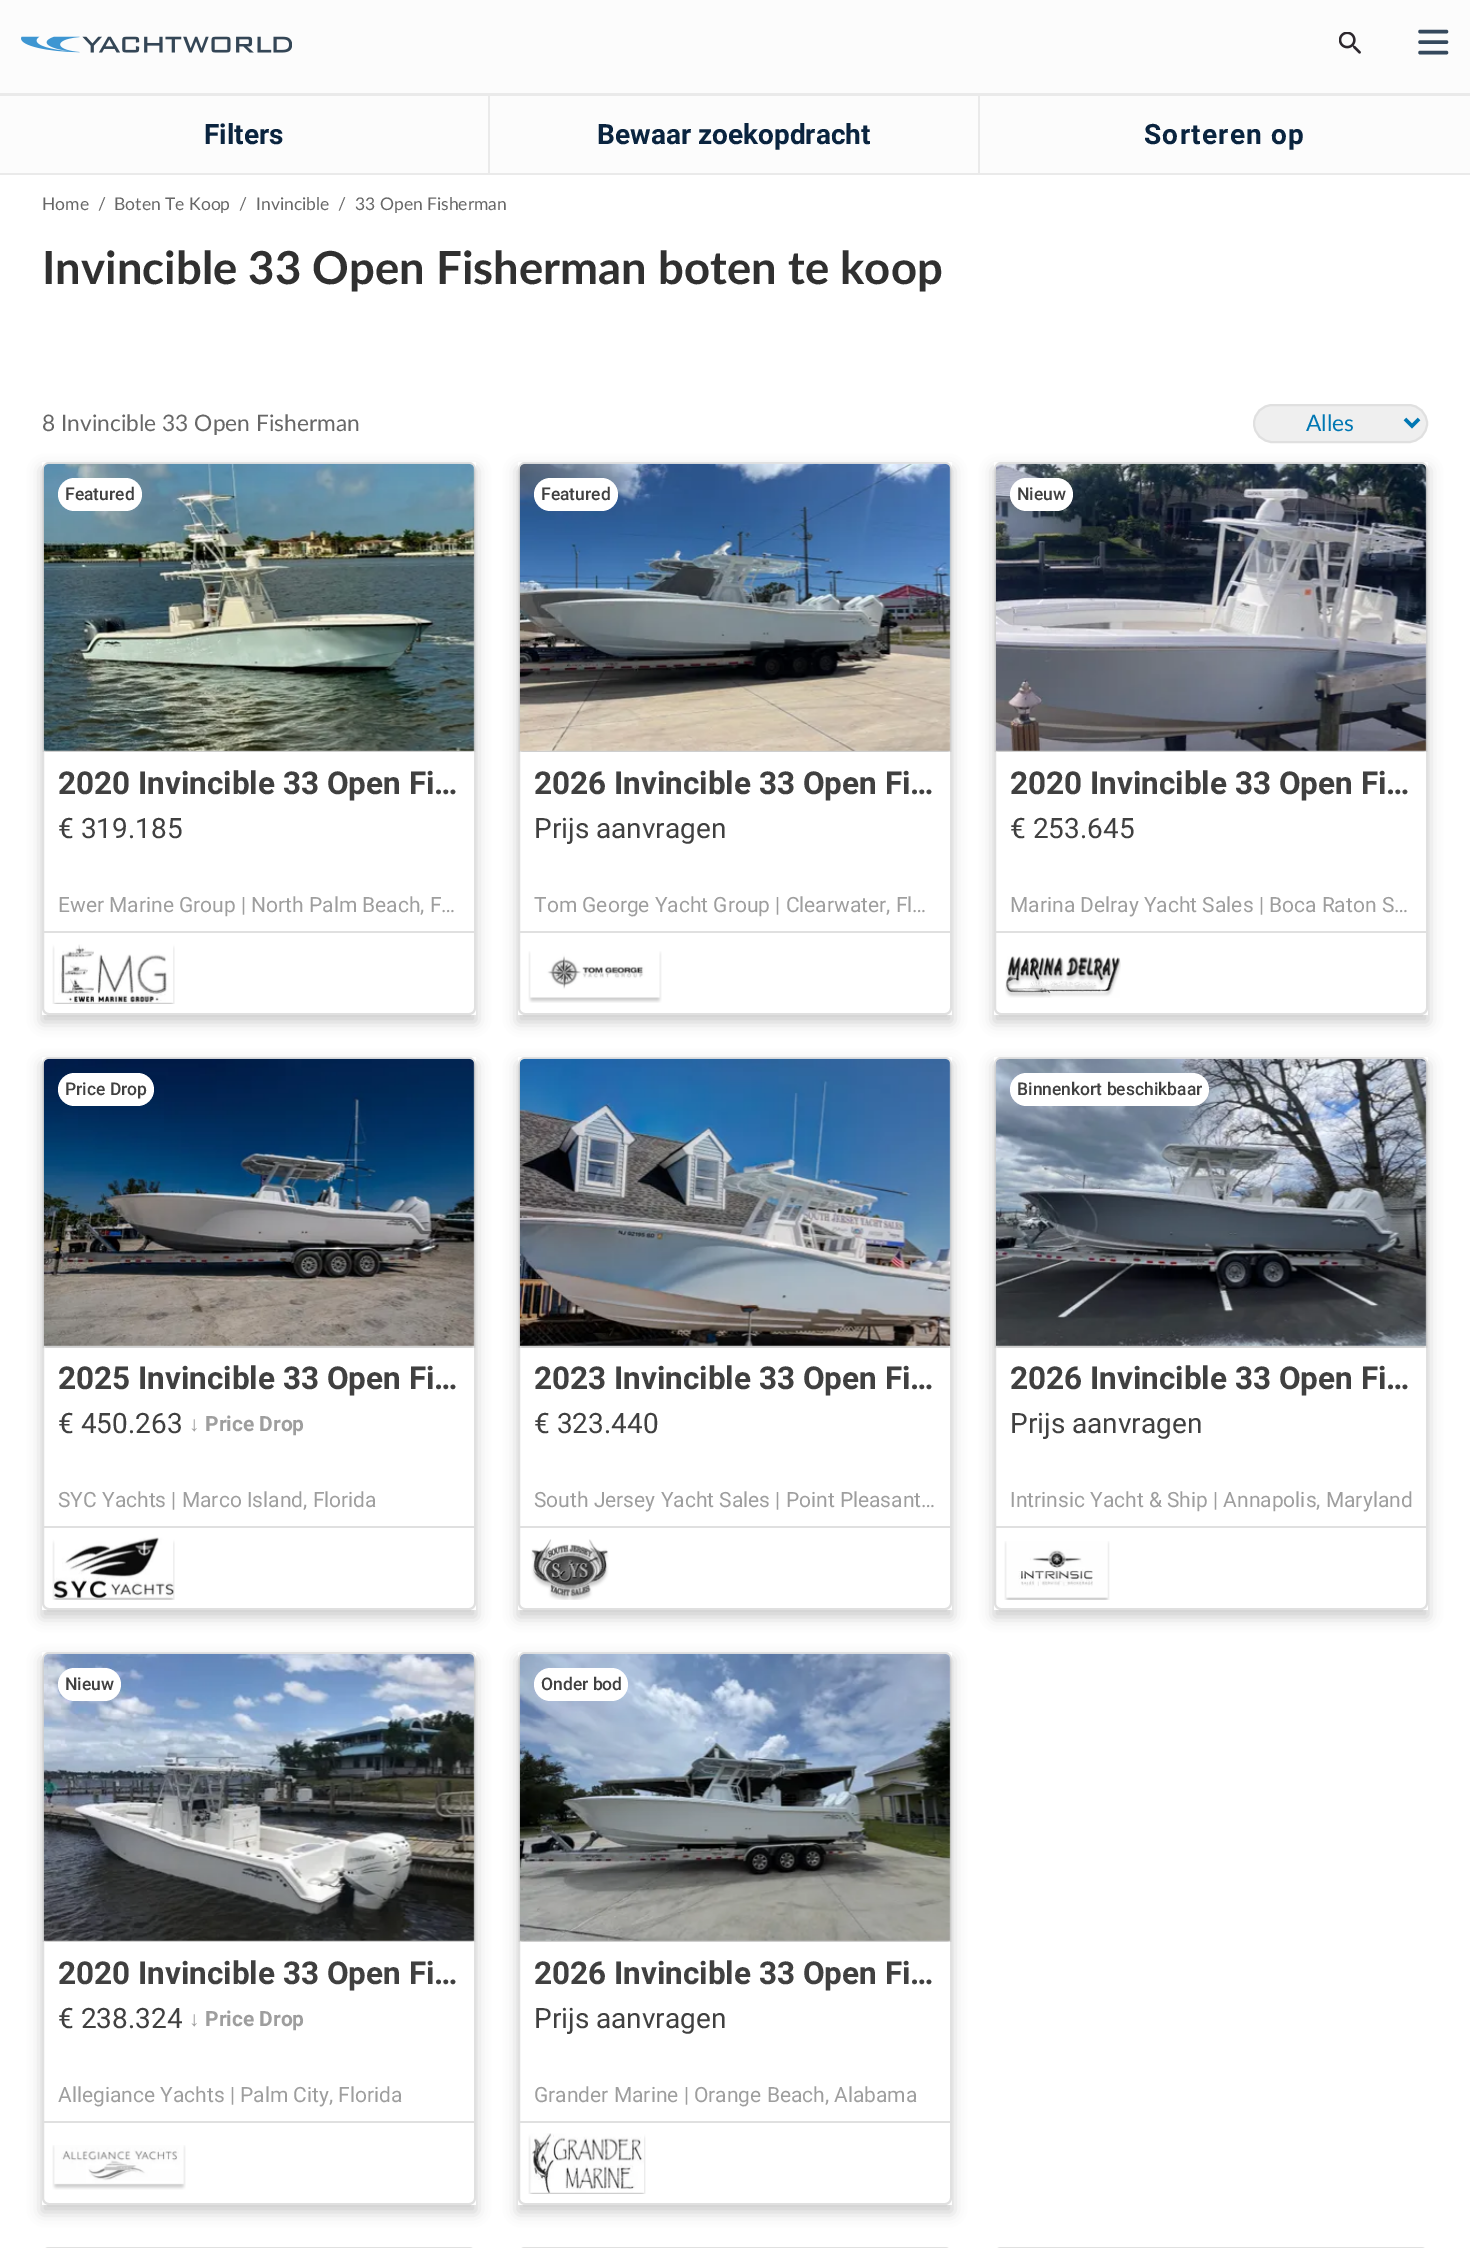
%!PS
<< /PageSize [1470 2248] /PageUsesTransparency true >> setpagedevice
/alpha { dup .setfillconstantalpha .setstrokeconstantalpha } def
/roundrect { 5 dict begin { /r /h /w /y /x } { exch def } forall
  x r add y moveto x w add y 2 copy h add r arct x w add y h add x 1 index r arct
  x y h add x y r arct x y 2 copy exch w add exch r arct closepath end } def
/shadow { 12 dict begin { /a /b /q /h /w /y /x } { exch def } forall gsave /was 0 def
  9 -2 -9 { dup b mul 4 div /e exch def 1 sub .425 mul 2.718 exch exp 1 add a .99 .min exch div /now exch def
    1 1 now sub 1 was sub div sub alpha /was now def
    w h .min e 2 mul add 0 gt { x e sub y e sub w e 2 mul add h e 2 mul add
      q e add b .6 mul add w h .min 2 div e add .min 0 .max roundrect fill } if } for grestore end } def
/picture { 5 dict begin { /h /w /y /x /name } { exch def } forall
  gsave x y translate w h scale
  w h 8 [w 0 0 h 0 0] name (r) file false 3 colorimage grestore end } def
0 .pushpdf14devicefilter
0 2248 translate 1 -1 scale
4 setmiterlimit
0.988 setgray
0 0 1470 2248 rectfill
0.918 setgray
0 93 1470 3 rectfill
(img1.rgb) 21 36 271 17 picture
0.208 0.286 0.365 setrgbcolor
3.5 setlinewidth
1 setlinecap
newpath 1420 31.5 moveto 1446.5 31.5 lineto 1420 42 moveto 1446.5 42 lineto 1420 52.5 moveto 1446.5 52.5 lineto stroke
(img2.rgb) 1339 32 22 22 picture
1 setgray
0 175 1470 2073 rectfill
0.918 setgray
0 173 1470 2 rectfill
488 96 2 77 rectfill
/Roboto-Bold [28 0 0 -28 0 0] selectfont
0.039 0.141 0.247 setrgbcolor
204 144 moveto (Filters) show
0.918 setgray
978 96 2 77 rectfill
0.039 0.141 0.247 setrgbcolor
597 144 moveto (Bewaar zoekopdracht) show
1144 144 moveto 1.25 0 (Sorteren op) ashow
/Lato-Regular [17.5 0 0 -17.5 0 0] selectfont
0.404 setgray
42 210 moveto (Home) show
98 210 moveto (/) show
114 210 moveto (Boten Te Koop) show
239 210 moveto (/) show
256 210 moveto (Invincible) show
338 210 moveto (/) show
355 210 moveto (33 Open Fisherman) show
/Lato-Bold [45.5 0 0 -45.5 0 0] selectfont
0.188 setgray
42 284 moveto (Invincible 33 Open Fisherman boten te koop) show
/Lato-Regular [22.75 0 0 -22.75 0 0] selectfont
0.404 setgray
42 431 moveto (8 Invincible 33 Open Fisherman) show
0.937 setgray
1254 405 173 37 18.5 roundrect gsave fill grestore
0.878 setgray
2 setlinewidth
0 setlinecap
stroke
0 0.467 0.702 setrgbcolor
3.5 setlinewidth
newpath 1405 419 moveto 1412 426 lineto 1419 419 lineto stroke
1306 431 moveto (Alles) show
gsave
newpath 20 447 moveto 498 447 lineto 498 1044 lineto 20 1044 lineto closepath 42 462 moveto 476 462 lineto 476 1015 lineto 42 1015 lineto closepath eoclip newpath
0 setgray
42 469 434 553 0 7 0.2 shadow
grestore
0.878 setgray
2 setlinewidth
43 463 432 551 6 roundrect stroke
(img3.rgb) 42 463 434 289 picture
1 setgray
58 478 84 33 16.5 roundrect fill
/Roboto-Medium [17.5 0 0 -17.5 0 0] selectfont
0.251 setgray
65 500 moveto (Featured) show
/Roboto-Bold [31.5 0 0 -31.5 0 0] selectfont
58 794 moveto (2020 Invincible 33 Open Fi…) show
/Roboto-Regular [28 0 0 -28 0 0] selectfont
58 838 moveto (€ 319.185) show
/Roboto-Regular [21 0 0 -21 0 0] selectfont
0.62 setgray
58 912 moveto (Ewer Marine Group | North Palm Beach, F…) show
0.878 setgray
44 931 430 2 rectfill
(img4.rgb) 52 944 123 60 picture
gsave
newpath 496 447 moveto 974 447 lineto 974 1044 lineto 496 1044 lineto closepath 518 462 moveto 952 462 lineto 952 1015 lineto 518 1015 lineto closepath eoclip newpath
0 setgray
518 469 434 553 0 7 0.2 shadow
grestore
519 463 432 551 6 roundrect stroke
(img5.rgb) 518 463 434 289 picture
1 setgray
534 478 84 33 16.5 roundrect fill
/Roboto-Medium [17.5 0 0 -17.5 0 0] selectfont
0.251 setgray
541 500 moveto (Featured) show
/Roboto-Bold [31.5 0 0 -31.5 0 0] selectfont
534 794 moveto (2026 Invincible 33 Open Fi…) show
/Roboto-Regular [28 0 0 -28 0 0] selectfont
534 838 moveto (Prijs aanvragen) show
/Roboto-Regular [21 0 0 -21 0 0] selectfont
0.62 setgray
534 912 moveto (Tom George Yacht Group | Clearwater, Fl…) show
0.878 setgray
520 931 430 2 rectfill
(img6.rgb) 528 951 134 52 picture
gsave
newpath 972 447 moveto 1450 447 lineto 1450 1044 lineto 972 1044 lineto closepath 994 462 moveto 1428 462 lineto 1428 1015 lineto 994 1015 lineto closepath eoclip newpath
0 setgray
994 469 434 553 0 7 0.2 shadow
grestore
995 463 432 551 6 roundrect stroke
(img7.rgb) 994 463 434 289 picture
1 setgray
1010 478 63 33 16.5 roundrect fill
/Roboto-Medium [17.5 0 0 -17.5 0 0] selectfont
0.251 setgray
1017 500 moveto (Nieuw) show
/Roboto-Bold [31.5 0 0 -31.5 0 0] selectfont
1010 794 moveto (2020 Invincible 33 Open Fi…) show
/Roboto-Regular [28 0 0 -28 0 0] selectfont
1010 838 moveto (€ 253.645) show
/Roboto-Regular [21 0 0 -21 0 0] selectfont
0.62 setgray
1010 912 moveto (Marina Delray Yacht Sales | Boca Raton S…) show
0.878 setgray
996 931 430 2 rectfill
(img8.rgb) 1005 956 116 42 picture
gsave
newpath 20 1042 moveto 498 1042 lineto 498 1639 lineto 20 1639 lineto closepath 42 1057 moveto 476 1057 lineto 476 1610 lineto 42 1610 lineto closepath eoclip newpath
0 setgray
42 1064 434 553 0 7 0.2 shadow
grestore
43 1058 432 551 6 roundrect stroke
(img9.rgb) 42 1058 434 290 picture
1 setgray
58 1073 96 33 16.5 roundrect fill
/Roboto-Medium [17.5 0 0 -17.5 0 0] selectfont
0.251 setgray
65 1095 moveto (Price Drop) show
/Roboto-Bold [31.5 0 0 -31.5 0 0] selectfont
58 1389 moveto (2025 Invincible 33 Open Fi…) show
/Roboto-Regular [28 0 0 -28 0 0] selectfont
58 1433 moveto (€ 450.263) show
/LiberationSans-Bold [21 0 0 -21 0 0] selectfont
0.62 setgray
189 1431 moveto (↓) show
/Roboto-Bold [21 0 0 -21 0 0] selectfont
205 1431 moveto (Price Drop) show
/Roboto-Regular [21 0 0 -21 0 0] selectfont
58 1507 moveto (SYC Yachts | Marco Island, Florida) show
0.878 setgray
44 1526 430 2 rectfill
(img10.rgb) 52 1537 123 63 picture
gsave
newpath 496 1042 moveto 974 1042 lineto 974 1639 lineto 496 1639 lineto closepath 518 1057 moveto 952 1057 lineto 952 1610 lineto 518 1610 lineto closepath eoclip newpath
0 setgray
518 1064 434 553 0 7 0.2 shadow
grestore
519 1058 432 551 6 roundrect stroke
(img11.rgb) 518 1058 434 290 picture
/Roboto-Bold [31.5 0 0 -31.5 0 0] selectfont
0.251 setgray
534 1389 moveto (2023 Invincible 33 Open Fi…) show
/Roboto-Regular [28 0 0 -28 0 0] selectfont
534 1433 moveto (€ 323.440) show
/Roboto-Regular [21 0 0 -21 0 0] selectfont
0.62 setgray
534 1507 moveto (South Jersey Yacht Sales | Point Pleasant…) show
0.878 setgray
520 1526 430 2 rectfill
(img12.rgb) 531 1539 78 61 picture
gsave
newpath 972 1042 moveto 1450 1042 lineto 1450 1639 lineto 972 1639 lineto closepath 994 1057 moveto 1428 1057 lineto 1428 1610 lineto 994 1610 lineto closepath eoclip newpath
0 setgray
994 1064 434 553 0 7 0.2 shadow
grestore
995 1058 432 551 6 roundrect stroke
(img13.rgb) 994 1058 434 290 picture
1 setgray
1010 1073 199 33 16.5 roundrect fill
/Roboto-Medium [17.5 0 0 -17.5 0 0] selectfont
0.251 setgray
1017 1095 moveto (Binnenkort beschikbaar) show
/Roboto-Bold [31.5 0 0 -31.5 0 0] selectfont
1010 1389 moveto (2026 Invincible 33 Open Fi…) show
/Roboto-Regular [28 0 0 -28 0 0] selectfont
1010 1433 moveto (Prijs aanvragen) show
/Roboto-Regular [21 0 0 -21 0 0] selectfont
0.62 setgray
1010 1507 moveto (Intrinsic Yacht & Ship | Annapolis, Maryland) show
0.878 setgray
996 1526 430 2 rectfill
(img14.rgb) 1004 1541 106 59 picture
gsave
newpath 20 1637 moveto 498 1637 lineto 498 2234 lineto 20 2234 lineto closepath 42 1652 moveto 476 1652 lineto 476 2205 lineto 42 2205 lineto closepath eoclip newpath
0 setgray
42 1659 434 553 0 7 0.2 shadow
grestore
43 1653 432 551 6 roundrect stroke
(img15.rgb) 42 1653 434 289 picture
1 setgray
58 1668 63 33 16.5 roundrect fill
/Roboto-Medium [17.5 0 0 -17.5 0 0] selectfont
0.251 setgray
65 1690 moveto (Nieuw) show
/Roboto-Bold [31.5 0 0 -31.5 0 0] selectfont
58 1984 moveto (2020 Invincible 33 Open Fi…) show
/Roboto-Regular [28 0 0 -28 0 0] selectfont
58 2028 moveto (€ 238.324) show
/LiberationSans-Bold [21 0 0 -21 0 0] selectfont
0.62 setgray
189 2026 moveto (↓) show
/Roboto-Bold [21 0 0 -21 0 0] selectfont
205 2026 moveto (Price Drop) show
/Roboto-Regular [21 0 0 -21 0 0] selectfont
58 2102 moveto (Allegiance Yachts | Palm City, Florida) show
0.878 setgray
44 2121 430 2 rectfill
(img16.rgb) 52 2145 134 45 picture
gsave
newpath 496 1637 moveto 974 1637 lineto 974 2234 lineto 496 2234 lineto closepath 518 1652 moveto 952 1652 lineto 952 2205 lineto 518 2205 lineto closepath eoclip newpath
0 setgray
518 1659 434 553 0 7 0.2 shadow
grestore
519 1653 432 551 6 roundrect stroke
(img17.rgb) 518 1653 434 289 picture
1 setgray
534 1668 94 33 16.5 roundrect fill
/Roboto-Medium [17.5 0 0 -17.5 0 0] selectfont
0.251 setgray
541 1690 moveto (Onder bod) show
/Roboto-Bold [31.5 0 0 -31.5 0 0] selectfont
534 1984 moveto (2026 Invincible 33 Open Fi…) show
/Roboto-Regular [28 0 0 -28 0 0] selectfont
534 2028 moveto (Prijs aanvragen) show
/Roboto-Regular [21 0 0 -21 0 0] selectfont
0.62 setgray
534 2102 moveto (Grander Marine | Orange Beach, Alabama) show
0.878 setgray
520 2121 430 2 rectfill
(img18.rgb) 528 2133 118 61 picture
43 2248 432 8 6 roundrect stroke
519 2248 432 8 6 roundrect stroke
995 2248 432 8 6 roundrect stroke
.poppdf14devicefilter showpage
